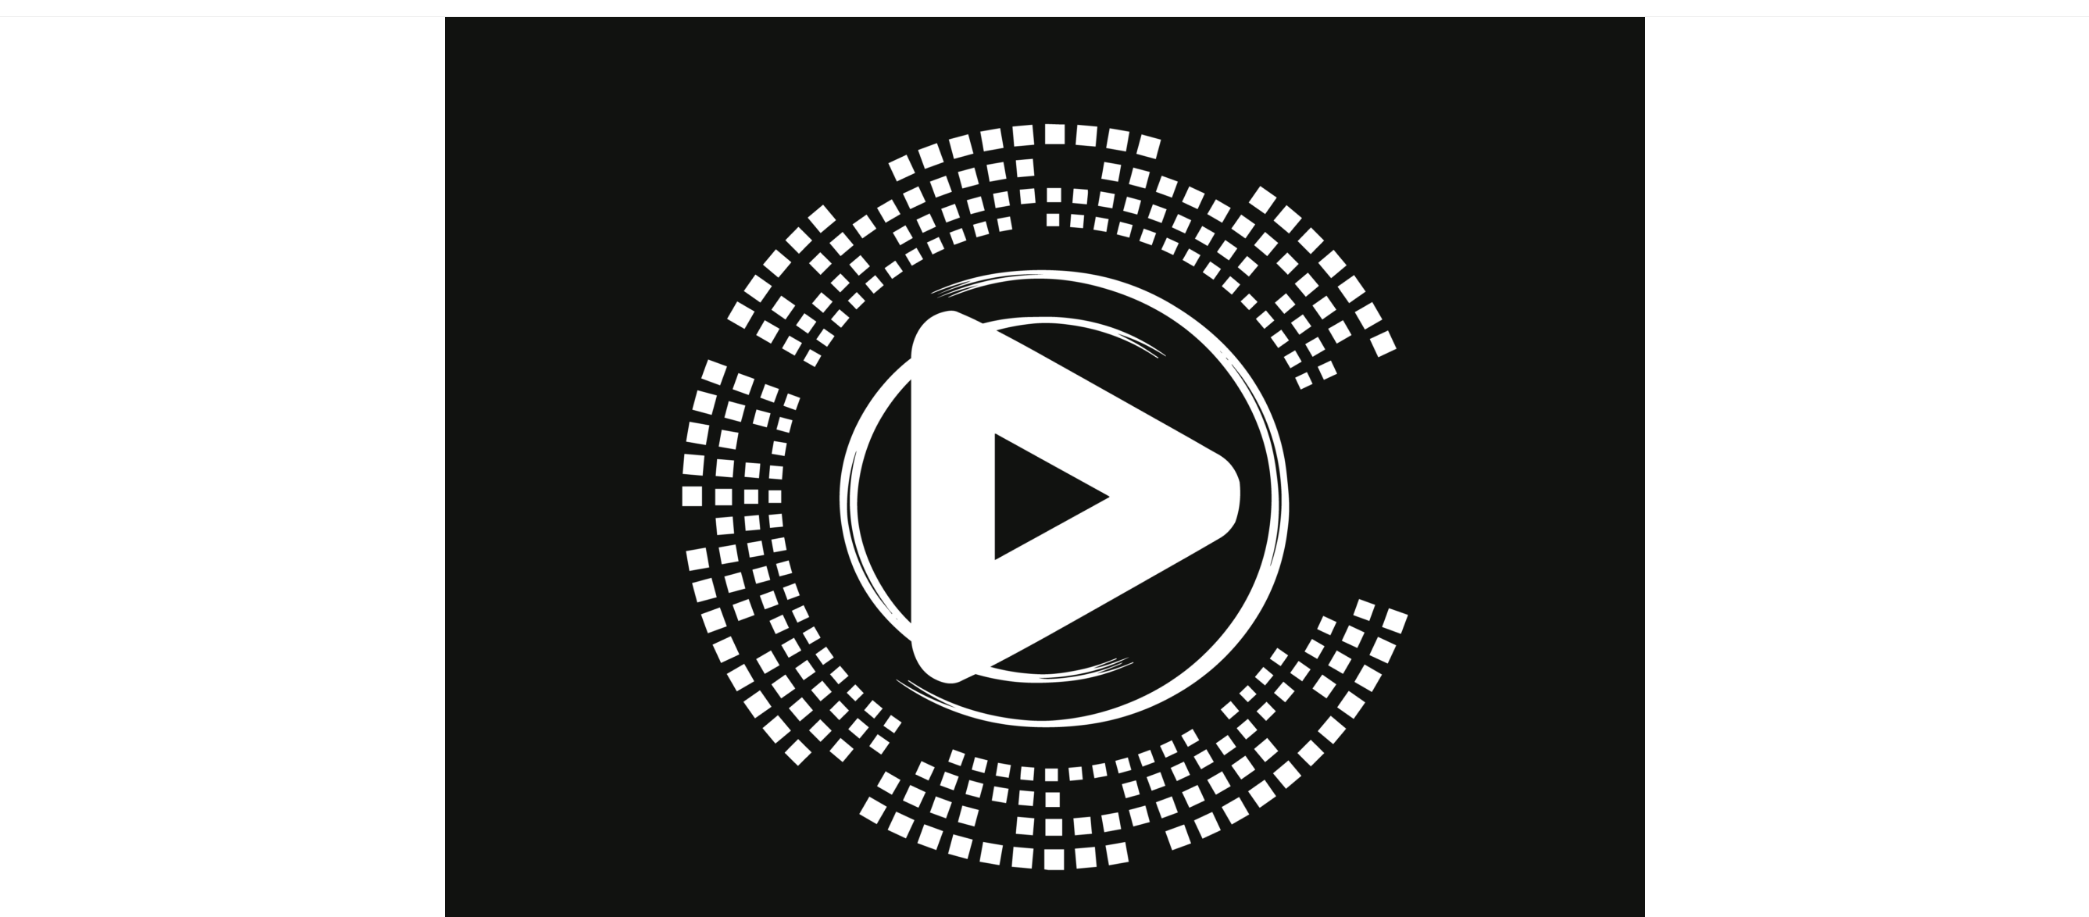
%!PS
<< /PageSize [2089 917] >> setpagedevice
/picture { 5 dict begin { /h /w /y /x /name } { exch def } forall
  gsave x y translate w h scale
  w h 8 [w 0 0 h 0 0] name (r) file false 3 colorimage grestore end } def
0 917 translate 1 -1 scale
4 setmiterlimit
1 setgray
0 0 2089 917 rectfill
0.945 setgray
0 16 2089 1 rectfill
(img1.rgb) 445 17 1200 900 picture
showpage
